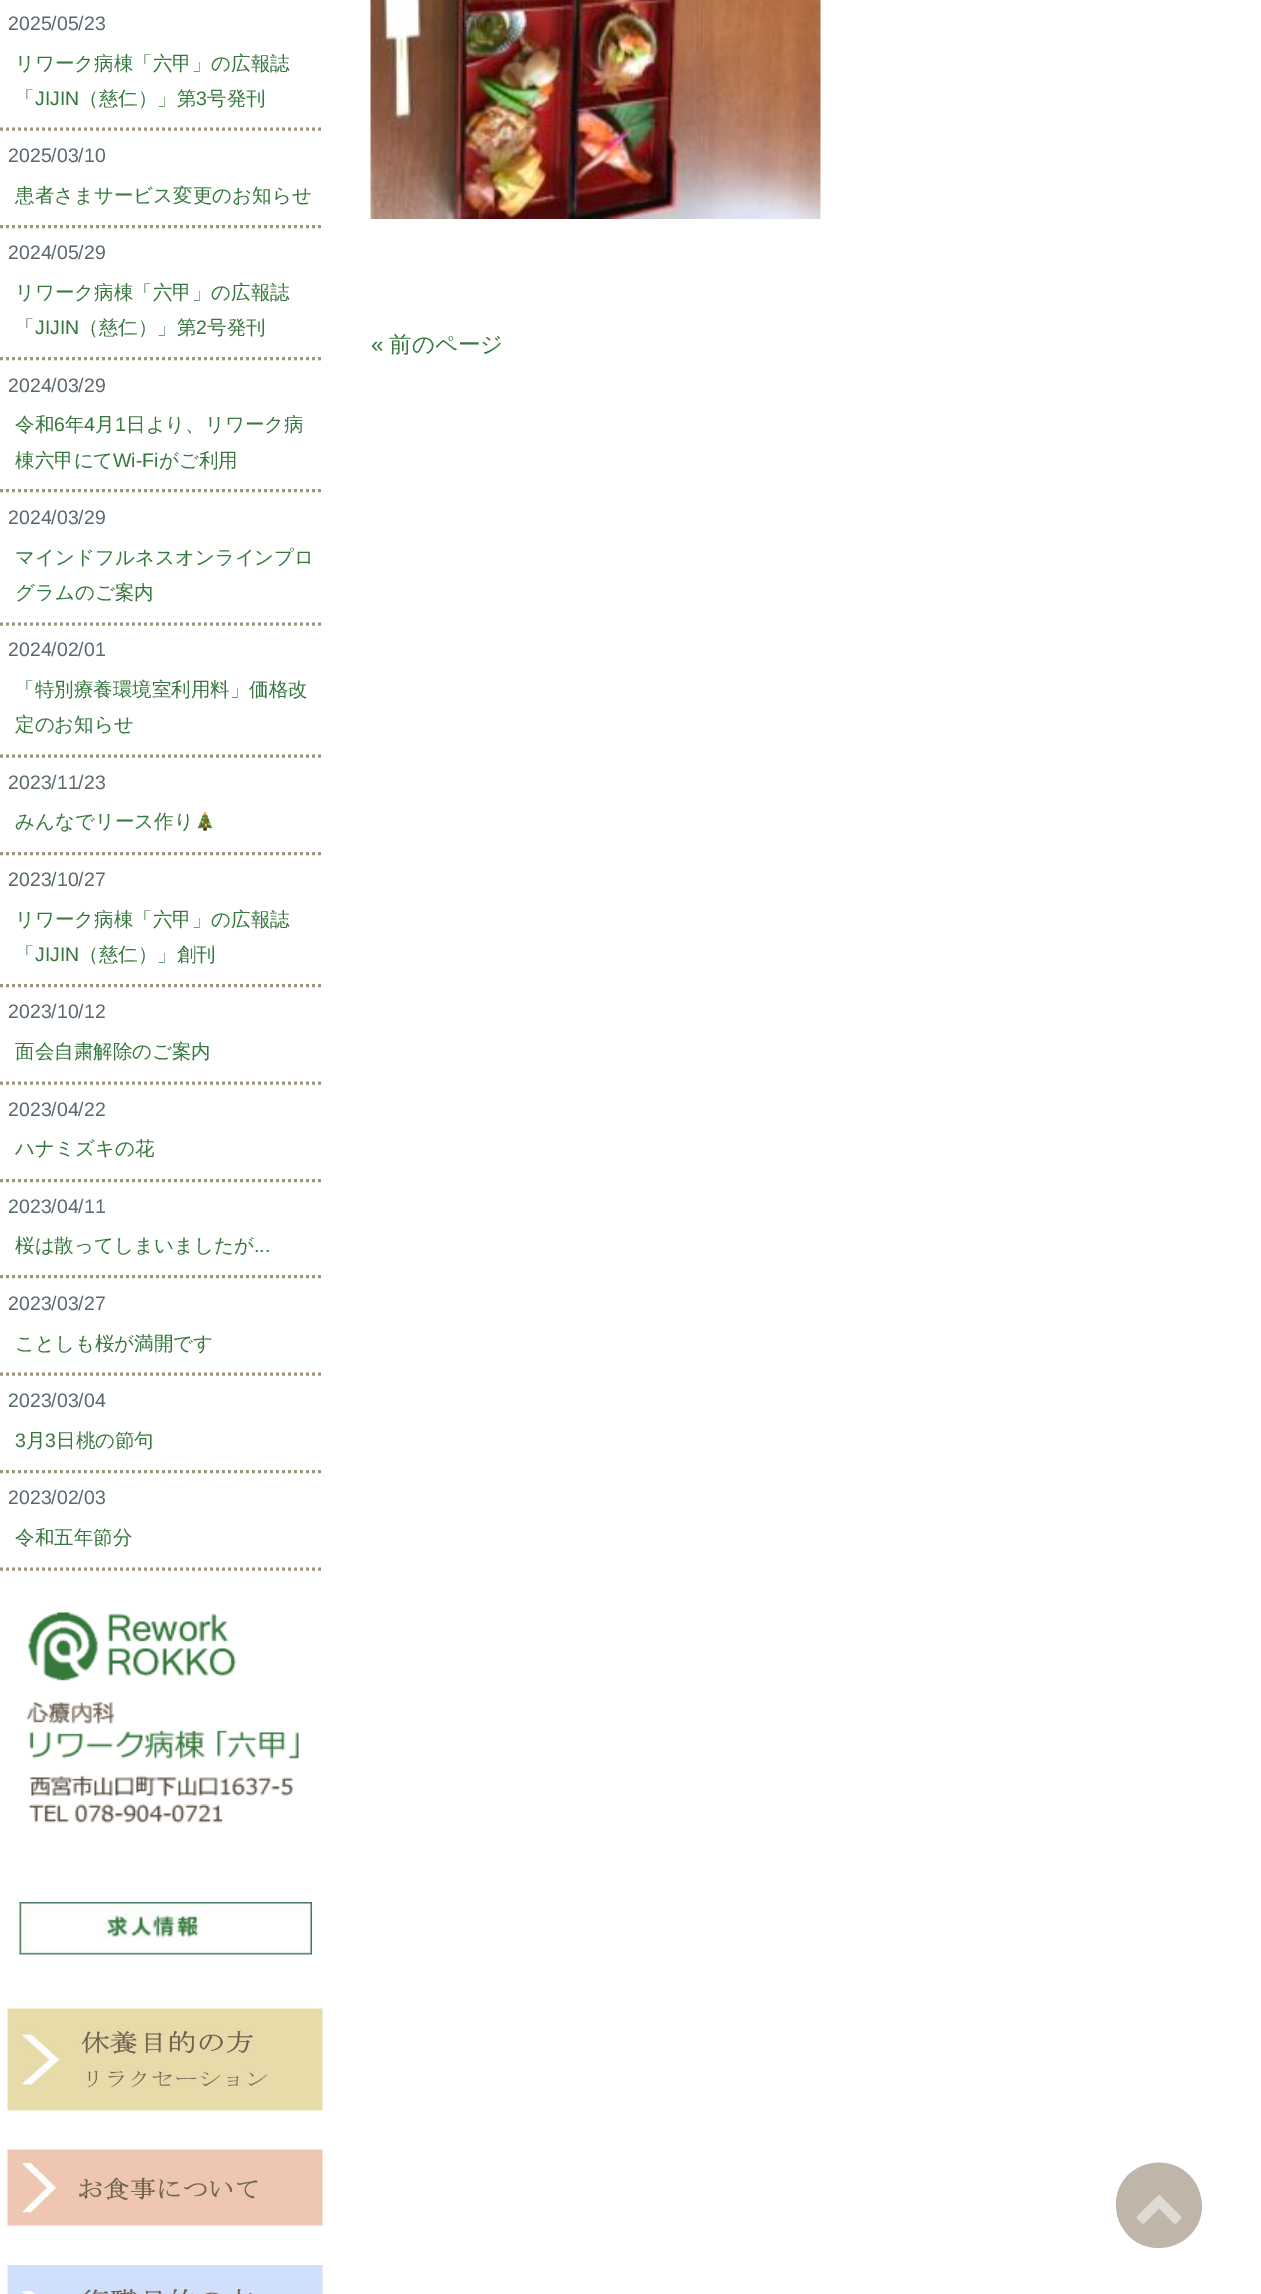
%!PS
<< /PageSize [1261 2294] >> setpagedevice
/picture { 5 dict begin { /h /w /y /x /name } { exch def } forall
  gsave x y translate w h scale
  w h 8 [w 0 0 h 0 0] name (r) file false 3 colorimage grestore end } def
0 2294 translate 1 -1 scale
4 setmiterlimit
1 setgray
0 0 1261 2294 rectfill
0.627 0.584 0.494 setrgbcolor
3 setlinewidth
[3 3] 0 setdash
newpath 0 129 moveto 322.5 129 lineto stroke
/LiberationSans-Regular [19.5 0 0 -19.5 0 0] selectfont
0.353 0.408 0.439 setrgbcolor
8 30 moveto (2025/05/23) show
/WenQuanYiZenHei-Medium [19.5 0 0 -19.5 0 0] selectfont
0.212 0.471 0.239 setrgbcolor
15 70 moveto (リワーク病棟「六甲」の広報誌) show
15 105 moveto (「) show
/LiberationSans-Regular [19.5 0 0 -19.5 0 0] selectfont
35 105 moveto (JIJIN) show
/WenQuanYiZenHei-Medium [19.5 0 0 -19.5 0 0] selectfont
79 105 moveto (（慈仁）」第) show
/LiberationSans-Regular [19.5 0 0 -19.5 0 0] selectfont
196 105 moveto (3) show
/WenQuanYiZenHei-Medium [19.5 0 0 -19.5 0 0] selectfont
207 105 moveto (号発刊) show
0.627 0.584 0.494 setrgbcolor
newpath 0 226.5 moveto 322.5 226.5 lineto stroke
/LiberationSans-Regular [19.5 0 0 -19.5 0 0] selectfont
0.353 0.408 0.439 setrgbcolor
8 162 moveto (2025/03/10) show
/WenQuanYiZenHei-Medium [19.5 0 0 -19.5 0 0] selectfont
0.212 0.471 0.239 setrgbcolor
15 202 moveto (患者さまサービス変更のお知らせ) show
0.627 0.584 0.494 setrgbcolor
newpath 0 358.5 moveto 322.5 358.5 lineto stroke
/LiberationSans-Regular [19.5 0 0 -19.5 0 0] selectfont
0.353 0.408 0.439 setrgbcolor
8 259 moveto (2024/05/29) show
/WenQuanYiZenHei-Medium [19.5 0 0 -19.5 0 0] selectfont
0.212 0.471 0.239 setrgbcolor
15 299 moveto (リワーク病棟「六甲」の広報誌) show
15 334 moveto (「) show
/LiberationSans-Regular [19.5 0 0 -19.5 0 0] selectfont
35 334 moveto (JIJIN) show
/WenQuanYiZenHei-Medium [19.5 0 0 -19.5 0 0] selectfont
79 334 moveto (（慈仁）」第) show
/LiberationSans-Regular [19.5 0 0 -19.5 0 0] selectfont
196 334 moveto (2) show
/WenQuanYiZenHei-Medium [19.5 0 0 -19.5 0 0] selectfont
207 334 moveto (号発刊) show
0.627 0.584 0.494 setrgbcolor
newpath 0 490.5 moveto 322.5 490.5 lineto stroke
/LiberationSans-Regular [19.5 0 0 -19.5 0 0] selectfont
0.353 0.408 0.439 setrgbcolor
8 392 moveto (2024/03/29) show
/WenQuanYiZenHei-Medium [19.5 0 0 -19.5 0 0] selectfont
0.212 0.471 0.239 setrgbcolor
15 431 moveto (令和) show
/LiberationSans-Regular [19.5 0 0 -19.5 0 0] selectfont
54 431 moveto (6) show
/WenQuanYiZenHei-Medium [19.5 0 0 -19.5 0 0] selectfont
65 431 moveto (年) show
/LiberationSans-Regular [19.5 0 0 -19.5 0 0] selectfont
84 431 moveto (4) show
/WenQuanYiZenHei-Medium [19.5 0 0 -19.5 0 0] selectfont
95 431 moveto (月) show
/LiberationSans-Regular [19.5 0 0 -19.5 0 0] selectfont
115 431 moveto (1) show
/WenQuanYiZenHei-Medium [19.5 0 0 -19.5 0 0] selectfont
126 431 moveto (日より、リワーク病) show
15 467 moveto (棟六甲にて) show
/LiberationSans-Regular [19.5 0 0 -19.5 0 0] selectfont
113 467 moveto (Wi-Fi) show
/WenQuanYiZenHei-Medium [19.5 0 0 -19.5 0 0] selectfont
159 467 moveto (がご利用) show
0.627 0.584 0.494 setrgbcolor
newpath 0 624 moveto 322.5 624 lineto stroke
/LiberationSans-Regular [19.5 0 0 -19.5 0 0] selectfont
0.353 0.408 0.439 setrgbcolor
8 524 moveto (2024/03/29) show
/WenQuanYiZenHei-Medium [19.5 0 0 -19.5 0 0] selectfont
0.212 0.471 0.239 setrgbcolor
15 564 moveto (マインドフルネスオンラインプロ) show
15 599 moveto (グラムのご案内) show
0.627 0.584 0.494 setrgbcolor
newpath 0 756 moveto 322.5 756 lineto stroke
/LiberationSans-Regular [19.5 0 0 -19.5 0 0] selectfont
0.353 0.408 0.439 setrgbcolor
8 656 moveto (2024/02/01) show
/WenQuanYiZenHei-Medium [19.5 0 0 -19.5 0 0] selectfont
0.212 0.471 0.239 setrgbcolor
15 696 moveto (「特別療養環境室利用料」価格改) show
15 731 moveto (定のお知らせ) show
0.627 0.584 0.494 setrgbcolor
newpath 0 853.5 moveto 322.5 853.5 lineto stroke
/LiberationSans-Regular [19.5 0 0 -19.5 0 0] selectfont
0.353 0.408 0.439 setrgbcolor
8 789 moveto (2023/11/23) show
/WenQuanYiZenHei-Medium [19.5 0 0 -19.5 0 0] selectfont
0.212 0.471 0.239 setrgbcolor
15 828 moveto (みんなでリース作り) show
(img1.rgb) 197 812 16 19 picture
0.627 0.584 0.494 setrgbcolor
newpath 0 985.5 moveto 322.5 985.5 lineto stroke
/LiberationSans-Regular [19.5 0 0 -19.5 0 0] selectfont
0.353 0.408 0.439 setrgbcolor
8 886 moveto (2023/10/27) show
/WenQuanYiZenHei-Medium [19.5 0 0 -19.5 0 0] selectfont
0.212 0.471 0.239 setrgbcolor
15 926 moveto (リワーク病棟「六甲」の広報誌) show
15 961 moveto (「) show
/LiberationSans-Regular [19.5 0 0 -19.5 0 0] selectfont
35 961 moveto (JIJIN) show
/WenQuanYiZenHei-Medium [19.5 0 0 -19.5 0 0] selectfont
79 961 moveto (（慈仁）」創刊) show
0.627 0.584 0.494 setrgbcolor
newpath 0 1083 moveto 322.5 1083 lineto stroke
/LiberationSans-Regular [19.5 0 0 -19.5 0 0] selectfont
0.353 0.408 0.439 setrgbcolor
8 1018 moveto (2023/10/12) show
/WenQuanYiZenHei-Medium [19.5 0 0 -19.5 0 0] selectfont
0.212 0.471 0.239 setrgbcolor
15 1058 moveto (面会自粛解除のご案内) show
0.627 0.584 0.494 setrgbcolor
newpath 0 1180.5 moveto 322.5 1180.5 lineto stroke
/LiberationSans-Regular [19.5 0 0 -19.5 0 0] selectfont
0.353 0.408 0.439 setrgbcolor
8 1116 moveto (2023/04/22) show
/WenQuanYiZenHei-Medium [19.5 0 0 -19.5 0 0] selectfont
0.212 0.471 0.239 setrgbcolor
15 1155 moveto (ハナミズキの花) show
0.627 0.584 0.494 setrgbcolor
newpath 0 1276.5 moveto 322.5 1276.5 lineto stroke
/LiberationSans-Regular [19.5 0 0 -19.5 0 0] selectfont
0.353 0.408 0.439 setrgbcolor
8 1213 moveto (2023/04/11) show
/WenQuanYiZenHei-Medium [19.5 0 0 -19.5 0 0] selectfont
0.212 0.471 0.239 setrgbcolor
15 1252 moveto (桜は散ってしまいましたが) show
/LiberationSans-Regular [19.5 0 0 -19.5 0 0] selectfont
254 1252 moveto (...) show
0.627 0.584 0.494 setrgbcolor
newpath 0 1374 moveto 322.5 1374 lineto stroke
0.353 0.408 0.439 setrgbcolor
8 1310 moveto (2023/03/27) show
/WenQuanYiZenHei-Medium [19.5 0 0 -19.5 0 0] selectfont
0.212 0.471 0.239 setrgbcolor
15 1350 moveto (ことしも桜が満開です) show
0.627 0.584 0.494 setrgbcolor
newpath 0 1471.5 moveto 322.5 1471.5 lineto stroke
/LiberationSans-Regular [19.5 0 0 -19.5 0 0] selectfont
0.353 0.408 0.439 setrgbcolor
8 1407 moveto (2023/03/04) show
0.212 0.471 0.239 setrgbcolor
15 1447 moveto (3) show
/WenQuanYiZenHei-Medium [19.5 0 0 -19.5 0 0] selectfont
26 1447 moveto (月) show
/LiberationSans-Regular [19.5 0 0 -19.5 0 0] selectfont
45 1447 moveto (3) show
/WenQuanYiZenHei-Medium [19.5 0 0 -19.5 0 0] selectfont
56 1447 moveto (日桃の節句) show
0.627 0.584 0.494 setrgbcolor
newpath 0 1569 moveto 322.5 1569 lineto stroke
/LiberationSans-Regular [19.5 0 0 -19.5 0 0] selectfont
0.353 0.408 0.439 setrgbcolor
8 1504 moveto (2023/02/03) show
/WenQuanYiZenHei-Medium [19.5 0 0 -19.5 0 0] selectfont
0.212 0.471 0.239 setrgbcolor
15 1544 moveto (令和五年節分) show
(img2.rgb) 26 1612 273 211 picture
(img3.rgb) 19 1902 293 53 picture
(img4.rgb) 7 2008 316 103 picture
(img5.rgb) 7 2149 316 77 picture
(img6.rgb) 7 2265 316 29 picture
(img7.rgb) 370 0 451 219 picture
/LiberationSans-Regular [22.5 0 0 -22.5 0 0] selectfont
371 352 moveto («) show
/WenQuanYiZenHei-Medium [22.5 0 0 -22.5 0 0] selectfont
389 352 moveto (前のページ) show
0.749 0.71 0.659 setrgbcolor
newpath 1196 2184 moveto 1200 2191 1202 2200 1202 2208 curveto 1199 2250 1143 2263 1122 2227 curveto 1117 2219 1116 2211 1116 2202 curveto 1119 2160 1175 2148 1196 2184 curveto closepath fill
(img8.rgb) 1136 2195 46 29 picture
showpage
